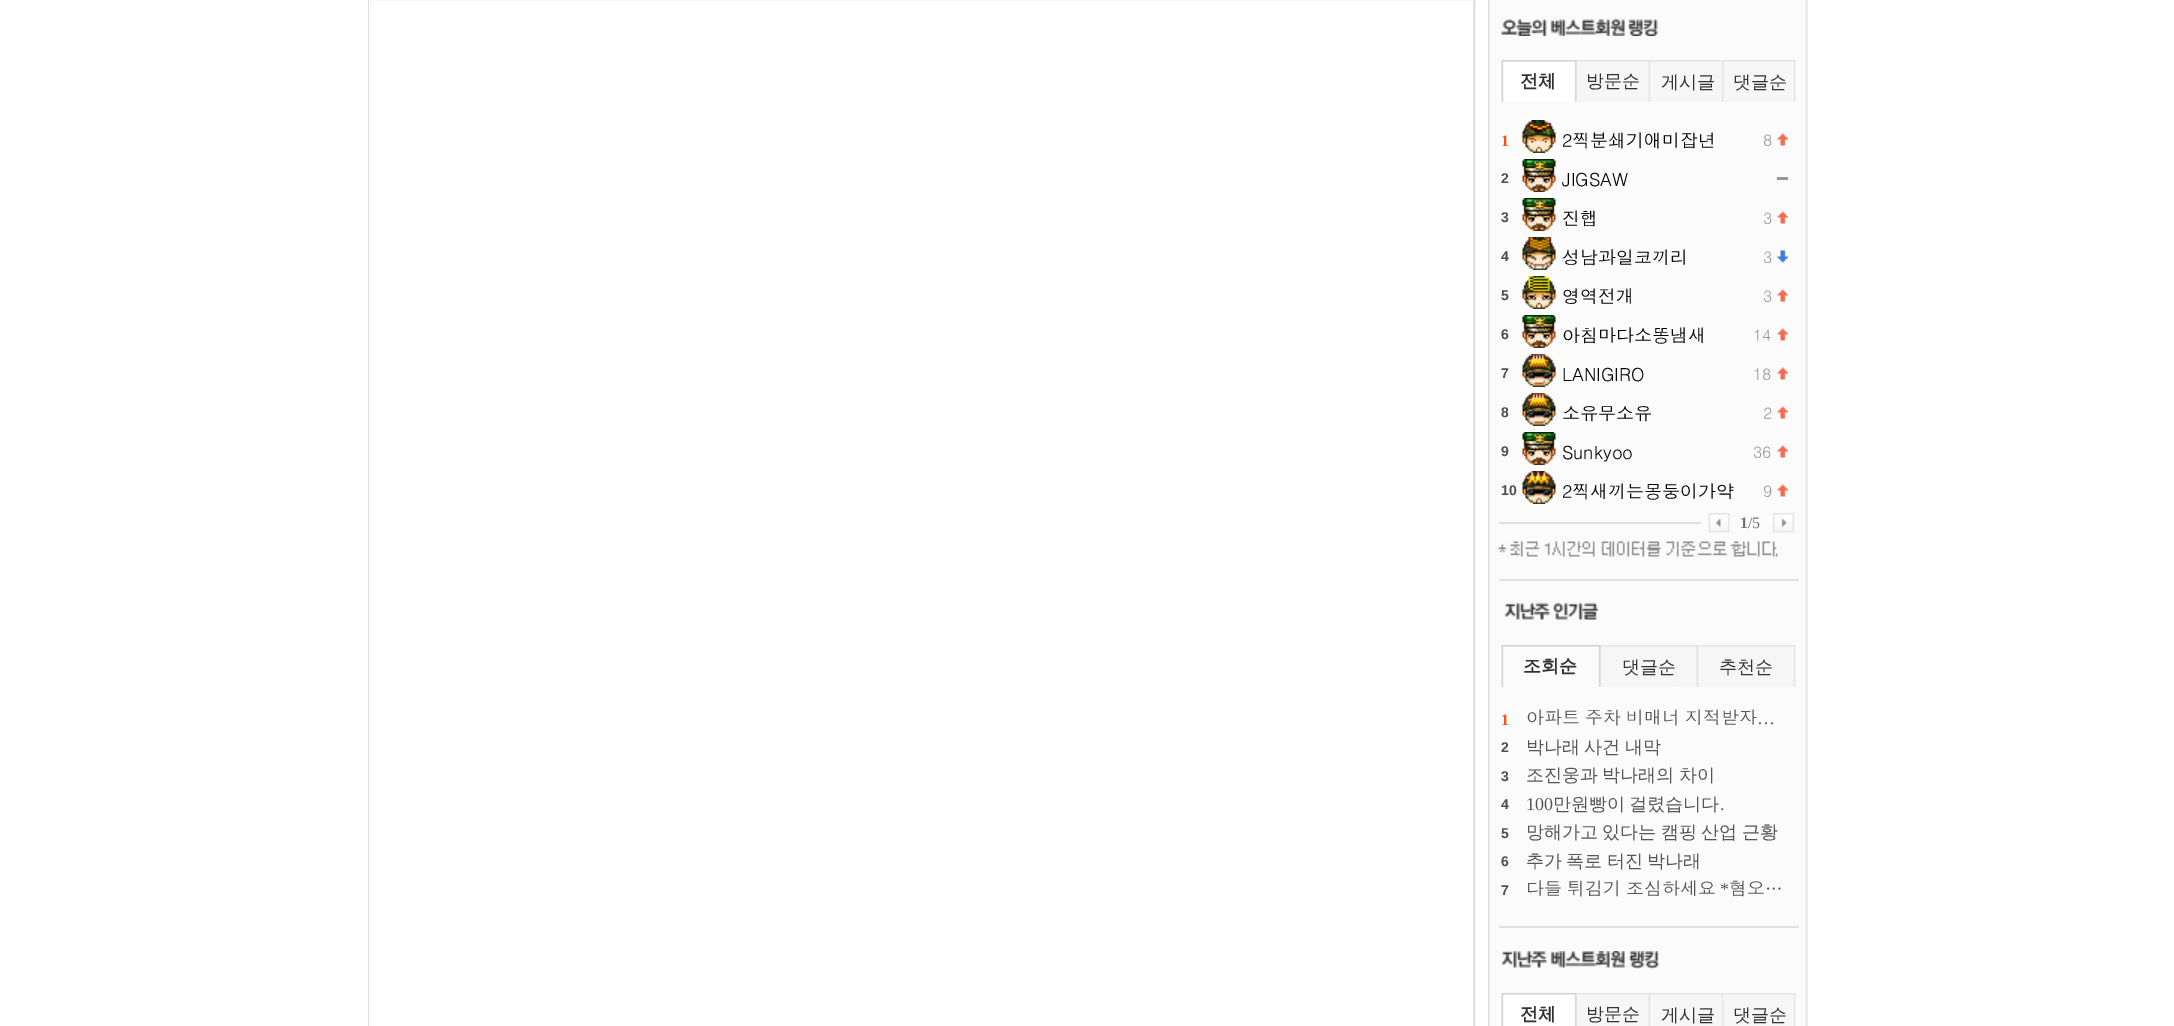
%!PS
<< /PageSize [2174 1026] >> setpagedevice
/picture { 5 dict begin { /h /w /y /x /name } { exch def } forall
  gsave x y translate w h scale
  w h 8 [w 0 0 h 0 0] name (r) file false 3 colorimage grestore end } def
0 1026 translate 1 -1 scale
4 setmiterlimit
1 setgray
0 0 2174 1026 rectfill
0.878 setgray
2 setlinewidth
369 -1 1105 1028 rectstroke
1 setgray
369 0 1 1026 rectfill
(img1.rgb) 1488 0 320 1026 picture
(img2.rgb) 1501 19 157 17 picture
(img3.rgb) 1501 60 295 42 picture
/WenQuanYiZenHei-Bold [18 0 0 -18 0 0] selectfont
0.2 setgray
1520 87 moveto (전체) show
/WenQuanYiZenHei-Medium [18 0 0 -18 0 0] selectfont
1586 87 moveto (방문순) show
1661 88 moveto (게시글) show
1733 88 moveto (댓글순) show
/LiberationSerif-Bold [16 0 0 -16 0 0] selectfont
1 0.314 0.043 setrgbcolor
1501 146 moveto (1) show
(img4.rgb) 1522 120 34 33 picture
/Dotum-Regular [18 0 0 -18 0 0] selectfont
0 setgray
1562 147 moveto (2찍분쇄기애미잡년) show
/Dotum-Regular [16 0 0 -16 0 0] selectfont
0.6 setgray
1763 146 moveto (8) show
(img5.rgb) 1777 133 11 13 picture
/LiberationSans-Bold [14 0 0 -14 0 0] selectfont
0.31 setgray
1501 183 moveto (2) show
(img6.rgb) 1522 159 34 33 picture
/Dotum-Regular [18 0 0 -18 0 0] selectfont
0 setgray
1562 186 moveto (JIGSAW) show
0.6 setgray
1777 177 11 3 rectfill
/LiberationSans-Bold [14 0 0 -14 0 0] selectfont
0.31 setgray
1501 222 moveto (3) show
(img6.rgb) 1522 198 34 33 picture
/Dotum-Regular [18 0 0 -18 0 0] selectfont
0 setgray
1562 225 moveto (진햅) show
/Dotum-Regular [16 0 0 -16 0 0] selectfont
0.6 setgray
1763 224 moveto (3) show
(img5.rgb) 1777 211 11 13 picture
/LiberationSans-Bold [14 0 0 -14 0 0] selectfont
0.31 setgray
1501 261 moveto (4) show
(img7.rgb) 1522 237 34 33 picture
/Dotum-Regular [18 0 0 -18 0 0] selectfont
0 setgray
1562 264 moveto (성남과일코끼리) show
/Dotum-Regular [16 0 0 -16 0 0] selectfont
0.6 setgray
1763 263 moveto (3) show
(img8.rgb) 1777 250 11 13 picture
/LiberationSans-Bold [14 0 0 -14 0 0] selectfont
0.31 setgray
1501 300 moveto (5) show
(img9.rgb) 1522 276 34 33 picture
/Dotum-Regular [18 0 0 -18 0 0] selectfont
0 setgray
1562 303 moveto (영역전개) show
/Dotum-Regular [16 0 0 -16 0 0] selectfont
0.6 setgray
1763 302 moveto (3) show
(img5.rgb) 1777 289 11 13 picture
/LiberationSans-Bold [14 0 0 -14 0 0] selectfont
0.31 setgray
1501 339 moveto (6) show
(img6.rgb) 1522 315 34 33 picture
/Dotum-Regular [18 0 0 -18 0 0] selectfont
0 setgray
1562 342 moveto (아침마다소똥냄새) show
/Dotum-Regular [16 0 0 -16 0 0] selectfont
0.6 setgray
1753 341 moveto (14) show
(img5.rgb) 1777 328 11 13 picture
/LiberationSans-Bold [14 0 0 -14 0 0] selectfont
0.31 setgray
1501 378 moveto (7) show
(img10.rgb) 1522 354 34 33 picture
/Dotum-Regular [18 0 0 -18 0 0] selectfont
0 setgray
1562 381 moveto (LANIGIRO) show
/Dotum-Regular [16 0 0 -16 0 0] selectfont
0.6 setgray
1753 380 moveto (18) show
(img5.rgb) 1777 367 11 13 picture
/LiberationSans-Bold [14 0 0 -14 0 0] selectfont
0.31 setgray
1501 417 moveto (8) show
(img10.rgb) 1522 393 34 33 picture
/Dotum-Regular [18 0 0 -18 0 0] selectfont
0 setgray
1562 420 moveto (소유무소유) show
/Dotum-Regular [16 0 0 -16 0 0] selectfont
0.6 setgray
1763 419 moveto (2) show
(img5.rgb) 1777 406 11 13 picture
/LiberationSans-Bold [14 0 0 -14 0 0] selectfont
0.31 setgray
1501 456 moveto (9) show
(img6.rgb) 1522 432 34 33 picture
/Dotum-Regular [18 0 0 -18 0 0] selectfont
0 setgray
1562 459 moveto (Sunkyoo) show
/Dotum-Regular [16 0 0 -16 0 0] selectfont
0.6 setgray
1753 458 moveto (36) show
(img5.rgb) 1777 445 11 13 picture
/LiberationSans-Bold [14 0 0 -14 0 0] selectfont
0.31 setgray
1501 495 moveto (10) show
(img11.rgb) 1522 471 34 33 picture
/Dotum-Regular [18 0 0 -18 0 0] selectfont
0 setgray
1562 498 moveto (2찍새끼는몽둥이가약) show
/Dotum-Regular [16 0 0 -16 0 0] selectfont
0.6 setgray
1763 497 moveto (9) show
(img5.rgb) 1777 484 11 13 picture
0.878 setgray
1499 522 202 2 rectfill
(img12.rgb) 1708 513 22 20 picture
/LiberationSerif-Bold [16 0 0 -16 0 0] selectfont
0.451 setgray
1740 528 moveto (1) show
/LiberationSerif-Regular [16 0 0 -16 0 0] selectfont
1748 528 moveto (/5) show
(img13.rgb) 1773 513 21 20 picture
(img14.rgb) 1498 541 280 16 picture
0.878 setgray
1499 579 300 2 rectfill
(img15.rgb) 1504 602 95 18 picture
(img16.rgb) 1501 645 295 42 picture
/WenQuanYiZenHei-Bold [18 0 0 -18 0 0] selectfont
0.2 setgray
1523 672 moveto (조회순) show
/WenQuanYiZenHei-Medium [18 0 0 -18 0 0] selectfont
1622 673 moveto (댓글순) show
1719 673 moveto (추천순) show
/LiberationSerif-Bold [16 0 0 -16 0 0] selectfont
1 0.314 0.043 setrgbcolor
1501 725 moveto (1) show
/Dotum-Regular [18 0 0 -18 0 0] selectfont
0.337 setgray
1526 724 moveto -1 0 32 (아파트 주차 비매너 지적받자) widthshow
/LiberationSerif-Regular [18 0 0 -18 0 0] selectfont
1757 724 moveto (…) show
/LiberationSans-Bold [14 0 0 -14 0 0] selectfont
0.31 setgray
1501 752 moveto (2) show
/WenQuanYiZenHei-Medium [18 0 0 -18 0 0] selectfont
0.337 setgray
1526 753 moveto -1 0 32 (박나래 사건 내막) widthshow
/LiberationSans-Bold [14 0 0 -14 0 0] selectfont
0.31 setgray
1501 781 moveto (3) show
/WenQuanYiZenHei-Medium [18 0 0 -18 0 0] selectfont
0.337 setgray
1526 781 moveto -1 0 32 (조진웅과 박나래의 차이) widthshow
/LiberationSans-Bold [14 0 0 -14 0 0] selectfont
0.31 setgray
1501 809 moveto (4) show
/LiberationSerif-Regular [18 0 0 -18 0 0] selectfont
0.337 setgray
1526 810 moveto (100) show
/WenQuanYiZenHei-Medium [18 0 0 -18 0 0] selectfont
1553 810 moveto -1 0 32 (만원빵이 걸렸습니다) widthshow
/LiberationSerif-Regular [18 0 0 -18 0 0] selectfont
1720 810 moveto (.) show
/LiberationSans-Bold [14 0 0 -14 0 0] selectfont
0.31 setgray
1501 838 moveto (5) show
/WenQuanYiZenHei-Medium [18 0 0 -18 0 0] selectfont
0.337 setgray
1526 838 moveto -1 0 32 (망해가고 있다는 캠핑 산업 근황) widthshow
/LiberationSans-Bold [14 0 0 -14 0 0] selectfont
0.31 setgray
1501 866 moveto (6) show
/WenQuanYiZenHei-Medium [18 0 0 -18 0 0] selectfont
0.337 setgray
1526 867 moveto -1 0 32 (추가 폭로 터진 박나래) widthshow
/LiberationSans-Bold [14 0 0 -14 0 0] selectfont
0.31 setgray
1501 895 moveto (7) show
/Dotum-Regular [18 0 0 -18 0 0] selectfont
0.337 setgray
1526 895 moveto -1 0 32 (다들 튀김기 조심하세요) widthshow
/LiberationSerif-Regular [18 0 0 -18 0 0] selectfont
1720 895 moveto (*) show
/Dotum-Regular [18 0 0 -18 0 0] selectfont
1729 895 moveto (혐오…) show
0.878 setgray
1499 926 300 2 rectfill
(img17.rgb) 1501 951 158 18 picture
(img18.rgb) 1501 993 295 33 picture
/WenQuanYiZenHei-Bold [18 0 0 -18 0 0] selectfont
0.2 setgray
1520 1020 moveto (전체) show
/WenQuanYiZenHei-Medium [18 0 0 -18 0 0] selectfont
1586 1020 moveto (방문순) show
1661 1021 moveto (게시글) show
1733 1021 moveto (댓글순) show
showpage
